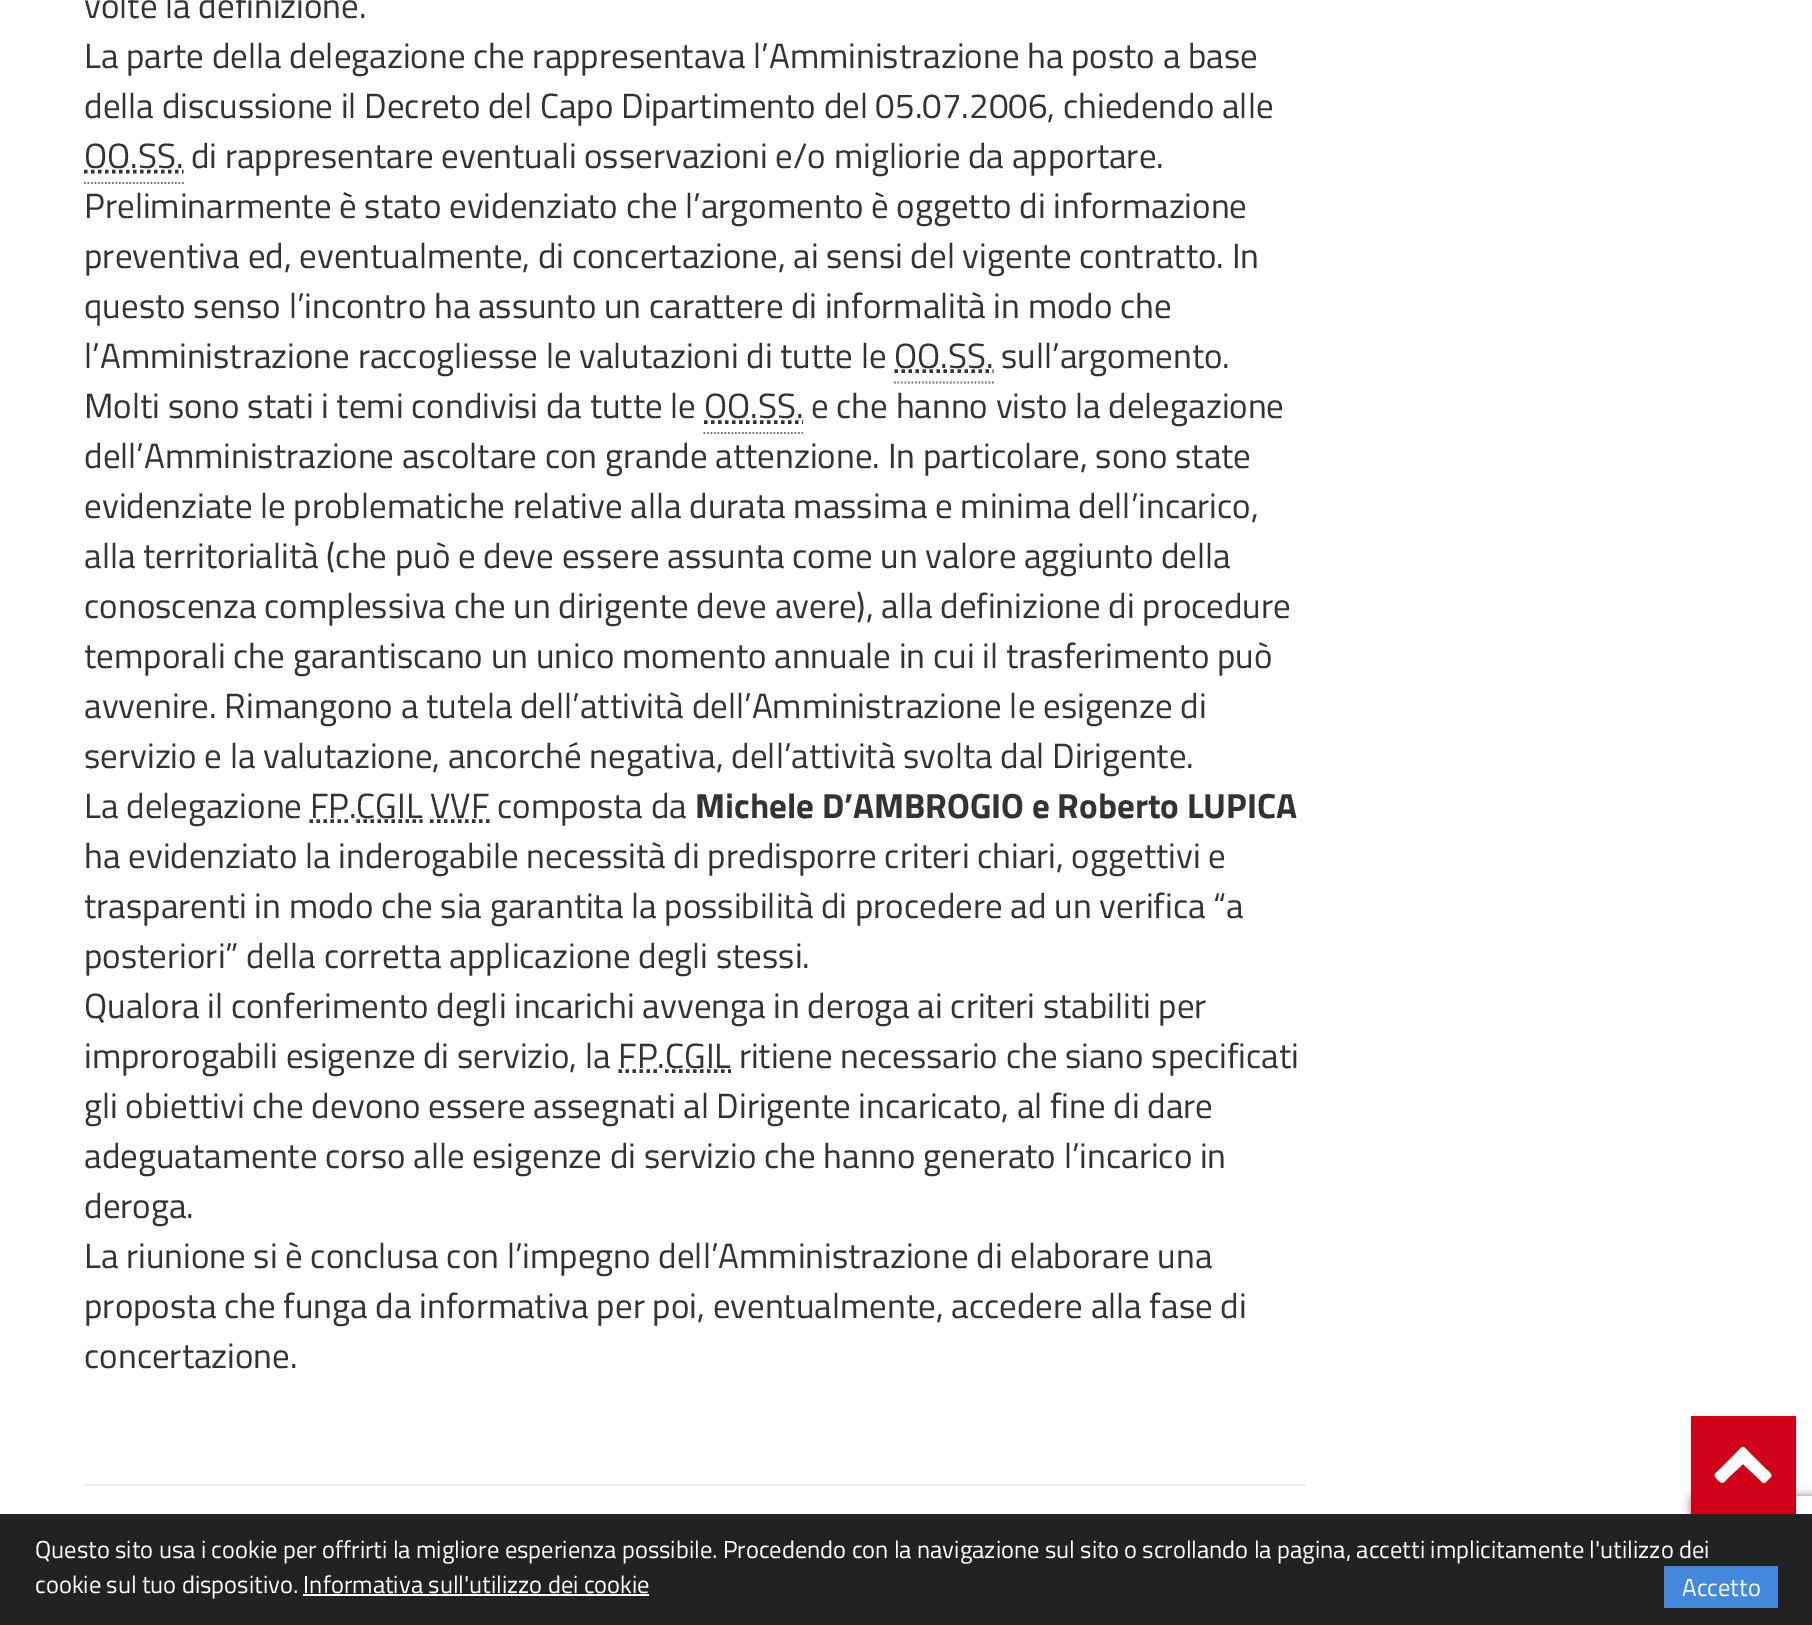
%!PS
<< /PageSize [1812 1625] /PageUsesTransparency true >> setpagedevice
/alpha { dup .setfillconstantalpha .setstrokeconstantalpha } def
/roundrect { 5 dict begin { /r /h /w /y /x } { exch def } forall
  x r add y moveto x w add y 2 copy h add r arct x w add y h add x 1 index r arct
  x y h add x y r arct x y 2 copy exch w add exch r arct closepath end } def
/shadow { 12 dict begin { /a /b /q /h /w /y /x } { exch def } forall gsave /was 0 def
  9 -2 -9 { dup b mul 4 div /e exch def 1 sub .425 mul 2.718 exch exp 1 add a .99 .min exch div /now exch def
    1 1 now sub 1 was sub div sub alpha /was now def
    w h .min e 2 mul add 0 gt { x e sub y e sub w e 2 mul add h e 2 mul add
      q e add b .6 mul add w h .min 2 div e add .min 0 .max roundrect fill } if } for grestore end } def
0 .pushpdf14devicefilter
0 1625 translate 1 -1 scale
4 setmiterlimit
1 setgray
0 0 1812 1625 rectfill
/TitilliumWeb-Regular [35 0 0 -35 0 0] selectfont
0.2 setgray
84 18 moveto (volte la definizione.) show
84 68 moveto (La parte della delegazione che rappresentava l’Amministrazione ha posto a base) show
84 118 moveto (della discussione il Decreto del Capo Dipartimento del 05.07.2006, chiedendo alle) show
3.5 setlinewidth
[3.5 3.5] 0 setdash
newpath 84 171.5 moveto 183.5 171.5 lineto stroke
84 168 moveto (OO.SS. di rappresentare eventuali osservazioni e/o migliorie da apportare.) show
0.467 setgray
1.8 setlinewidth
[1.75 1.75] 0 setdash
newpath 84 183 moveto 184 183 lineto stroke
0.2 setgray
84 218 moveto (Preliminarmente è stato evidenziato che l’argomento è oggetto di informazione) show
84 268 moveto (preventiva ed, eventualmente, di concertazione, ai sensi del vigente contratto. In) show
84 318 moveto (questo senso l’incontro ha assunto un carattere di informalità in modo che) show
84 368 moveto (l’Amministrazione raccogliesse le valutazioni di tutte le OO.SS. sull’argomento.) show
3.5 setlinewidth
[3.5 3.5] 0 setdash
newpath 894.5 371 moveto 993.5 371 lineto stroke
0.467 setgray
1.8 setlinewidth
[1.75 1.75] 0 setdash
newpath 894 382.5 moveto 994 382.5 lineto stroke
0.2 setgray
84 418 moveto (Molti sono stati i temi condivisi da tutte le OO.SS. e che hanno visto la delegazione) show
3.5 setlinewidth
[3.5 3.5] 0 setdash
newpath 704 422 moveto 803 422 lineto stroke
0.467 setgray
1.8 setlinewidth
[1.75 1.75] 0 setdash
newpath 703.5 433 moveto 803 433 lineto stroke
0.2 setgray
84 468 moveto (dell’Amministrazione ascoltare con grande attenzione. In particolare, sono state) show
84 518 moveto (evidenziate le problematiche relative alla durata massima e minima dell’incarico,) show
84 568 moveto (alla territorialità \(che può e deve essere assunta come un valore aggiunto della) show
84 618 moveto (conoscenza complessiva che un dirigente deve avere\), alla definizione di procedure) show
84 668 moveto (temporali che garantiscano un unico momento annuale in cui il trasferimento può) show
84 718 moveto (avvenire. Rimangono a tutela dell’attività dell’Amministrazione le esigenze di) show
84 768 moveto (servizio e la valutazione, ancorché negativa, dell’attività svolta dal Dirigente.) show
84 818 moveto (La delegazione FP.CGIL VVF composta da) show
/TitilliumWeb-Bold [35 0 0 -35 0 0] selectfont
695 818 moveto (Michele D’AMBROGIO e Roberto LUPICA) show
3.5 setlinewidth
[3.5 3.5] 0 setdash
newpath 309.5 821 moveto 349 821 lineto stroke
newpath 356.5 821 moveto 422.5 821 lineto stroke
newpath 430 821 moveto 489.5 821 lineto stroke
/TitilliumWeb-Regular [35 0 0 -35 0 0] selectfont
84 868 moveto (ha evidenziato la inderogabile necessità di predisporre criteri chiari, oggettivi e) show
84 918 moveto (trasparenti in modo che sia garantita la possibilità di procedere ad un verifica “a) show
84 968 moveto (posteriori” della corretta applicazione degli stessi.) show
84 1018 moveto (Qualora il conferimento degli incarichi avvenga in deroga ai criteri stabiliti per) show
84 1068 moveto (improrogabili esigenze di servizio, la FP.CGIL ritiene necessario che siano specificati) show
newpath 618.5 1071 moveto 657.5 1071 lineto stroke
newpath 665 1071 moveto 731 1071 lineto stroke
84 1118 moveto (gli obiettivi che devono essere assegnati al Dirigente incaricato, al fine di dare) show
84 1168 moveto (adeguatamente corso alle esigenze di servizio che hanno generato l’incarico in) show
84 1218 moveto (deroga.) show
84 1268 moveto (La riunione si è conclusa con l’impegno dell’Amministrazione di elaborare una) show
84 1318 moveto (proposta che funga da informativa per poi, eventualmente, accedere alla fase di) show
84 1368 moveto (concertazione.) show
0.933 setgray
84 1484 1222 2 rectfill
gsave
newpath 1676 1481 moveto 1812 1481 lineto 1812 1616 lineto 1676 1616 lineto closepath 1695 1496 moveto 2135 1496 lineto 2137 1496 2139 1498 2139 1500 curveto 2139 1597 lineto 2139 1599 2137 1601 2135 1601 curveto 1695 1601 lineto 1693 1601 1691 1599 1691 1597 curveto 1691 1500 lineto 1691 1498 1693 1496 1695 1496 curveto closepath eoclip newpath
0.502 setgray
1691 1496 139 105 4 4.5 1 shadow
grestore
0.82 0 0.098 setrgbcolor
1691 1416 105 98 rectfill
1 setgray
newpath 1771 1477 moveto 1764 1483 1765 1486 1759 1479 curveto 1743 1464 lineto 1727 1479 lineto 1722 1485 1722 1484 1716 1478 curveto 1713 1474 1716 1473 1720 1469 curveto 1737 1452 lineto 1744 1445 1742 1445 1749 1452 curveto 1766 1469 lineto 1767 1470 1773 1474 1771 1477 curveto closepath fill
0.133 setgray
0 1514 1812 111 rectfill
/TitilliumWeb-Regular [24.5 0 0 -24.5 0 0] selectfont
1 setgray
35 1558 moveto (Questo sito usa i cookie per offrirti la migliore esperienza possibile. Procedendo con la navigazione sul sito o scrollando la pagina, accetti implicitamente l'utilizzo dei) show
35 1593 moveto (cookie sul tuo dispositivo. Informativa sull'utilizzo dei cookie) show
0.267 0.533 0.867 setrgbcolor
1664 1566 114 42 rectfill
1 setgray
1682 1596 moveto (Accetto) show
303 1594 346 2 rectfill
.poppdf14devicefilter showpage
